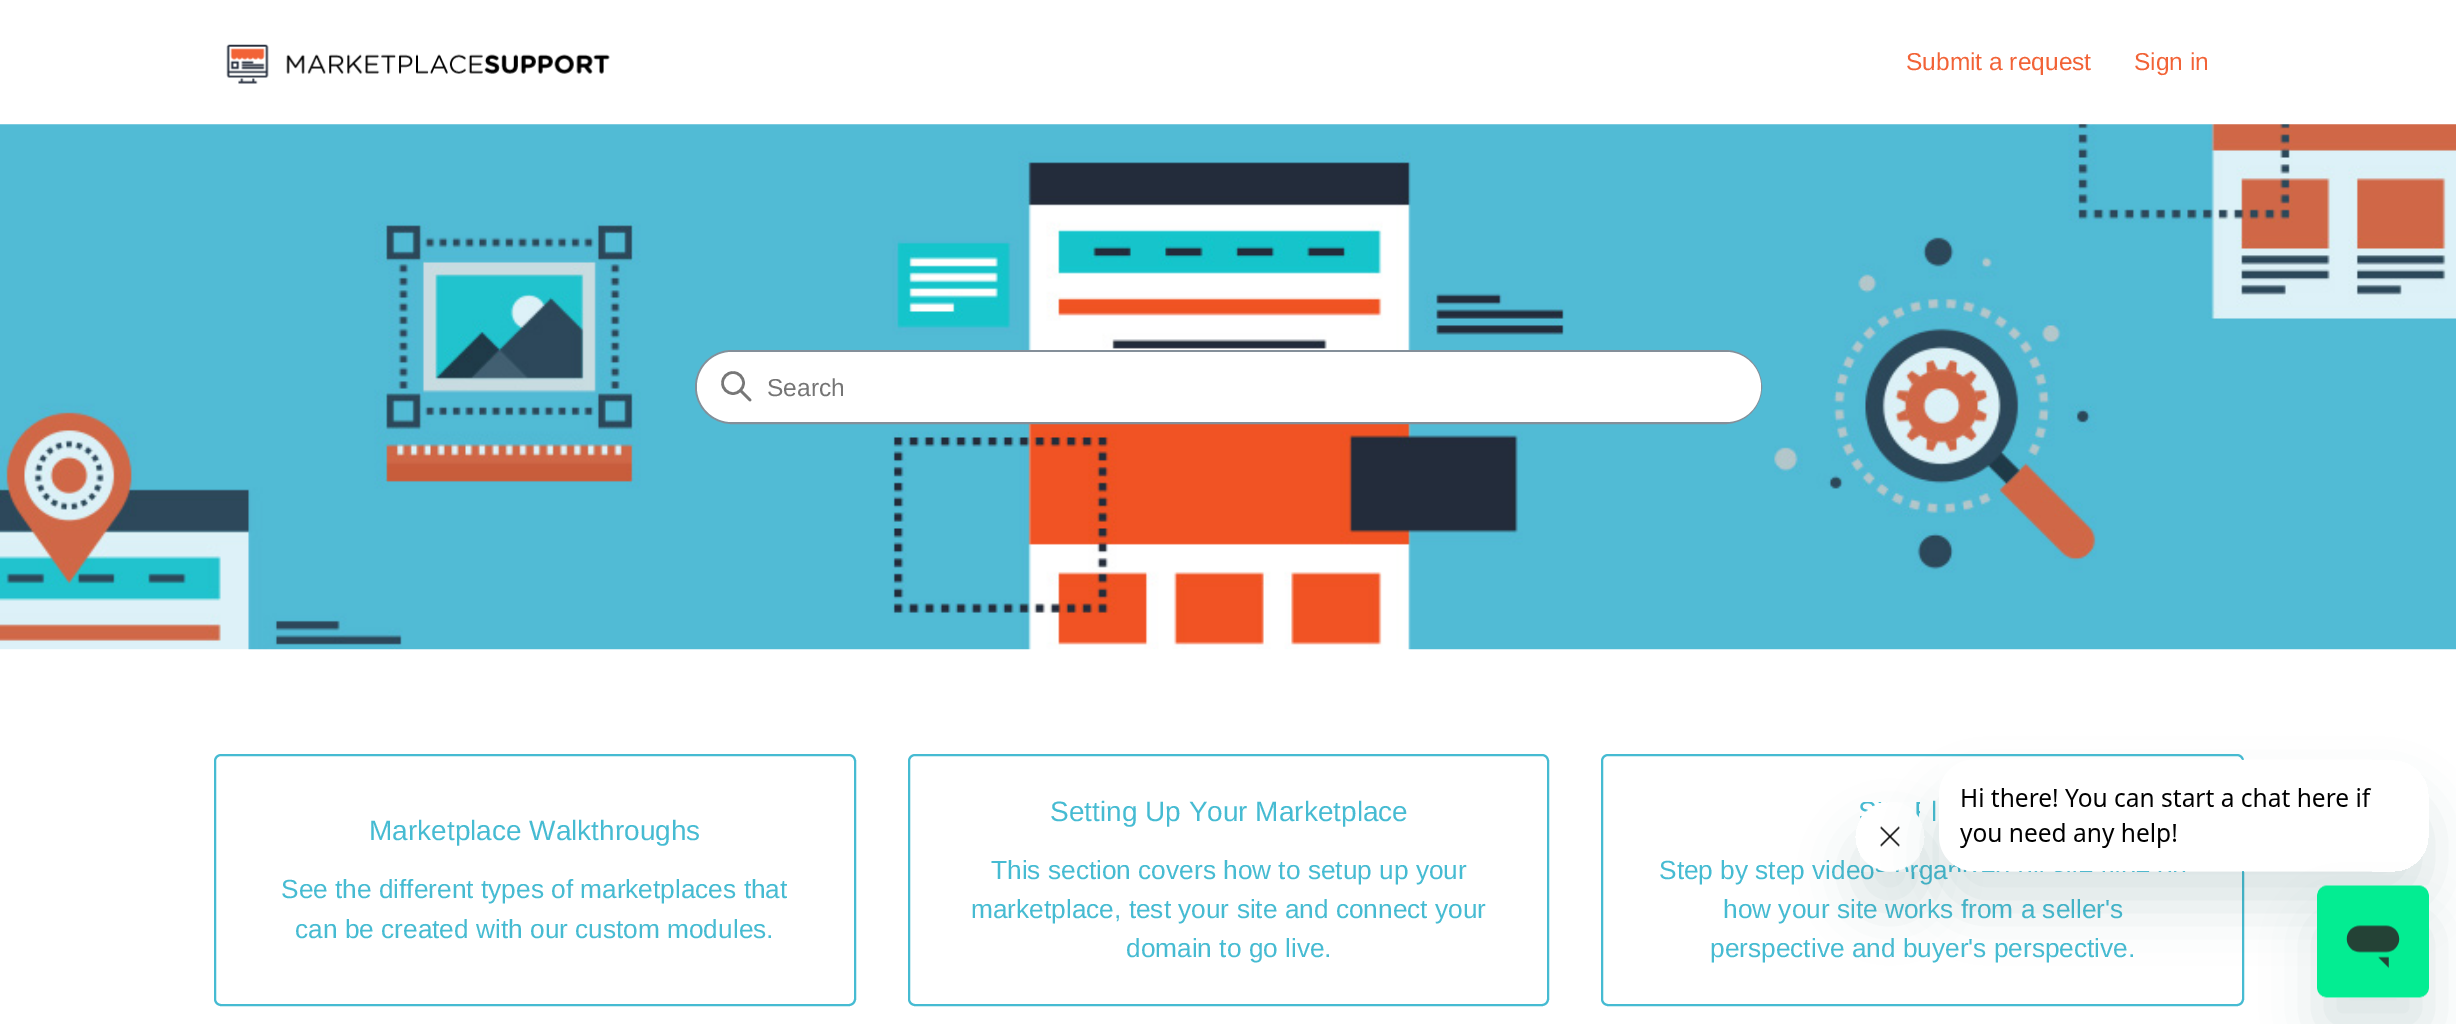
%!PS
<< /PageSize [2456 1024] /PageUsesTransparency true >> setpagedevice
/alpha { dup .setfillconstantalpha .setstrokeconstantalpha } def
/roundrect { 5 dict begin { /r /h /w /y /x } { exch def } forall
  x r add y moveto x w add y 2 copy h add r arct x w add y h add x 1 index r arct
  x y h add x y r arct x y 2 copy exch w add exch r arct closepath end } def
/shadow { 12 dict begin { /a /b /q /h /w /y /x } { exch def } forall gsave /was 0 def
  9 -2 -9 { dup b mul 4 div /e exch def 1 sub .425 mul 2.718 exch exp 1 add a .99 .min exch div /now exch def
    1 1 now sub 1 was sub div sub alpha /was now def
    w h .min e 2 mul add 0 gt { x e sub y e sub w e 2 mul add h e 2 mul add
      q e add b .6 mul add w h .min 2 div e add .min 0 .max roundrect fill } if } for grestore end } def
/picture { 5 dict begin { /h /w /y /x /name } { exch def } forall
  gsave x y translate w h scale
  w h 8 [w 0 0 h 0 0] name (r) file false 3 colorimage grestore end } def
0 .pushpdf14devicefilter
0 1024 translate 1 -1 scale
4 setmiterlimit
1 setgray
0 0 2456 1024 rectfill
(img1.rgb) 226 44 384 40 picture
/LiberationSans-Regular [24.5 0 0 -24.5 0 0] selectfont
0.949 0.388 0.216 setrgbcolor
1906 70 moveto (Submit a request) show
2134 70 moveto (Sign in) show
(img2.rgb) 0 124 2456 526 picture
0.518 0.561 0.6 setrgbcolor
2 setlinewidth
696 351 1065 72 36 roundrect stroke
1 setgray
697 352 1064 70 35 roundrect fill
0.467 setgray
2.6 setlinewidth
newpath 733 383 10.5 0 360 arc closepath stroke
1 setlinecap
newpath 750 400 moveto 740.5 390.5 lineto stroke
0.459 setgray
767 396 moveto (Search) show
0.275 0.733 0.824 setrgbcolor
2 setlinewidth
0 setlinecap
215 755 640 250 6 roundrect stroke
/LiberationSans-Regular [28 0 0 -28 0 0] selectfont
369 840 moveto (Marketplace Walkthroughs) show
/LiberationSans-Regular [26.25 0 0 -26.25 0 0] selectfont
281 898 moveto (See the different types of marketplaces that) show
295 938 moveto (can be created with our custom modules.) show
909 755 639 250 6 roundrect stroke
/LiberationSans-Regular [28 0 0 -28 0 0] selectfont
1050 821 moveto (Setting Up Your Marketplace) show
/LiberationSans-Regular [26.25 0 0 -26.25 0 0] selectfont
991 879 moveto (This section covers how to setup up your) show
971 918 moveto (marketplace, test your site and connect your) show
1126 957 moveto (domain to go live.) show
1602 755 641 250 6 roundrect stroke
/LiberationSans-Regular [28 0 0 -28 0 0] selectfont
1931 821 moveto (l) show
/LiberationSans-Regular [26.25 0 0 -26.25 0 0] selectfont
1659 879 moveto (Step by step video) show
1910 879 moveto (rga) show
1723 918 moveto (how your site works from a seller's) show
1710 957 moveto (perspective and buyer's perspective.) show
gsave
newpath 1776 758 moveto 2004 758 lineto 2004 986 lineto 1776 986 lineto closepath 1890 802 moveto 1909.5 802 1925 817.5 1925 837 curveto 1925 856.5 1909.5 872 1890 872 curveto 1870.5 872 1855 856.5 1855 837 curveto 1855 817.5 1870.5 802 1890 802 curveto closepath eoclip newpath
0.09 0.286 0.302 setrgbcolor
1855 837 70 70 35 26 0.15 shadow
grestore
(img4.rgb) 1860 802 60 70 picture
gsave
newpath 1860 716 moveto 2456 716 lineto 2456 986 lineto 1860 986 lineto closepath 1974 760 moveto 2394 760 lineto 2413.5 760 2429 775.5 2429 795 curveto 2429 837 lineto 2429 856.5 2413.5 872 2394 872 curveto 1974 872 lineto 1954.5 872 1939 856.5 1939 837 curveto 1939 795 lineto 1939 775.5 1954.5 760 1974 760 curveto closepath eoclip newpath
0.09 0.286 0.302 setrgbcolor
1939 795 490 112 35 26 0.15 shadow
grestore
(img3.rgb) 1939 759 433 113 picture
0.09 0.286 0.302 setrgbcolor
2317 921 112 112 11 26 0.15 shadow
(img5.rgb) 2317 885 112 113 picture
.poppdf14devicefilter showpage
